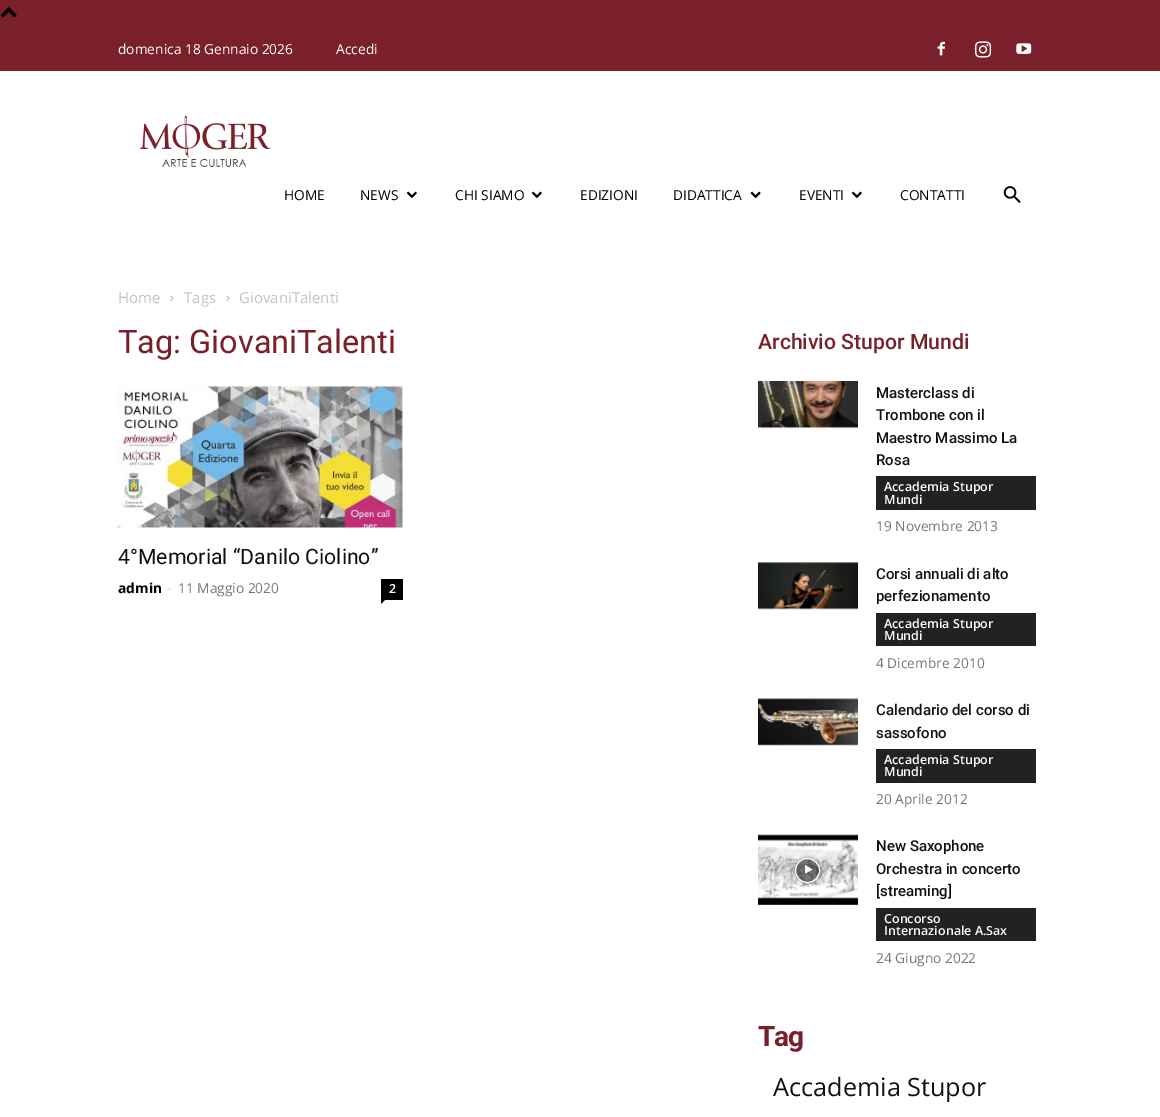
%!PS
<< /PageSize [1160 1117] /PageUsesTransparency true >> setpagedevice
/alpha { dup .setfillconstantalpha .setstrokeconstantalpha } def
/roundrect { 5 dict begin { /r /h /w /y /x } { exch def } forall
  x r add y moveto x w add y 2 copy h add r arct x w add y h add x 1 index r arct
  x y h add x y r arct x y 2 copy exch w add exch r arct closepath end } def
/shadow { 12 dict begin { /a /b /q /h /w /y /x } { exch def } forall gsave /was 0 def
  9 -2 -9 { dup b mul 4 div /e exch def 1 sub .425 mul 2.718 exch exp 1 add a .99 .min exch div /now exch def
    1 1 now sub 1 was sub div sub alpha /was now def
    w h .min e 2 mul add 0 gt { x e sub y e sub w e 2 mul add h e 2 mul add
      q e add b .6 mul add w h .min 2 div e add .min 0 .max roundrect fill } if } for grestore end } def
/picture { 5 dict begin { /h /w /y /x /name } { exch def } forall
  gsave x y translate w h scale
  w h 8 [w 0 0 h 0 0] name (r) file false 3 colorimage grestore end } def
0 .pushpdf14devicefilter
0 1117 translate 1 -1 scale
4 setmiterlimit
1 setgray
0 0 1160 1117 rectfill
0.475 0.125 0.165 setrgbcolor
0 0 1160 71 rectfill
(img1.rgb) 1 7 16 11 picture
/OpenSans-Regular [13.75 0 0 -13.75 0 0] selectfont
1 setgray
118 54 moveto (domenica 18 Gennaio 2026) show
336 54 moveto (Accedi) show
(img2.rgb) 937 41 8 15 picture
(img3.rgb) 975 41 17 17 picture
(img4.rgb) 1016 43 16 11 picture
(img5.rgb) 140 115 130 52 picture
0 setgray
284 200 moveto (HOME) show
360 200 moveto (NEWS) show
(img6.rgb) 406 191 11 8 picture
455 200 moveto (CHI SIAMO) show
(img6.rgb) 531 191 11 8 picture
580 200 moveto (EDIZIONI) show
673 200 moveto (DIDATTICA) show
(img7.rgb) 750 191 11 8 picture
799 200 moveto (EVENTI) show
(img6.rgb) 851 191 11 8 picture
900 200 moveto (CONTATTI) show
(img8.rgb) 1003 186 18 17 picture
/OpenSans-Regular [15 0 0 -15 0 0] selectfont
0.765 setgray
118 303 moveto (Home) show
(img9.rgb) 170 295 4 6 picture
184 303 moveto (Tags) show
(img10.rgb) 226 295 4 6 picture
239 303 moveto (GiovaniTalenti) show
/Roboto-Regular [32.5 0 0 -32.5 0 0] selectfont
0.475 0.125 0.165 setrgbcolor
118 353 moveto (Tag: GiovaniTalenti) show
(img11.rgb) 117 386 286 142 picture
/Roboto-Regular [21.25 0 0 -21.25 0 0] selectfont
0.067 setgray
118 564 moveto (4°Memorial “Danilo Ciolino”) show
/OpenSans-Bold [13.75 0 0 -13.75 0 0] selectfont
0 setgray
118 593 moveto (admin) show
/OpenSans-Regular [13.75 0 0 -13.75 0 0] selectfont
0.8 setgray
167 593 moveto (-) show
0.463 setgray
178 593 moveto (11 Maggio 2020) show
0 setgray
381 579 22 21 rectfill
/OpenSans-SemiBold [12.5 0 0 -12.5 0 0] selectfont
1 setgray
389 593 moveto (2) show
0 setgray
newpath 381 600 moveto 385 600 lineto 381 604 lineto closepath fill
/Roboto-Medium [21.25 0 0 -21.25 0 0] selectfont
0.475 0.125 0.165 setrgbcolor
758 349 moveto (Archivio Stupor Mundi) show
(img12.rgb) 758 381 100 48 picture
/Roboto-Medium [15 0 0 -15 0 0] selectfont
0.067 setgray
876 398 moveto (Masterclass di) show
876 420 moveto (Trombone con il) show
876 443 moveto (Maestro Massimo La) show
876 465 moveto (Rosa) show
0.133 setgray
876 476 160 34 rectfill
/OpenSans-SemiBold [12.5 0 0 -12.5 0 0] selectfont
1 setgray
884 491 moveto (Accademia Stupor) show
884 504 moveto (Mundi) show
/OpenSans-Regular [13.75 0 0 -13.75 0 0] selectfont
0.463 setgray
876 531 moveto (19 Novembre 2013) show
(img13.rgb) 758 562 100 48 picture
/Roboto-Medium [15 0 0 -15 0 0] selectfont
0.067 setgray
876 579 moveto (Corsi annuali di alto) show
876 601 moveto (perfezionamento) show
0.133 setgray
876 613 160 33 rectfill
/OpenSans-SemiBold [12.5 0 0 -12.5 0 0] selectfont
1 setgray
884 628 moveto (Accademia Stupor) show
884 640 moveto (Mundi) show
/OpenSans-Regular [13.75 0 0 -13.75 0 0] selectfont
0.463 setgray
876 668 moveto (4 Dicembre 2010) show
(img14.rgb) 758 698 100 48 picture
/Roboto-Medium [15 0 0 -15 0 0] selectfont
0.067 setgray
876 715 moveto (Calendario del corso di) show
876 738 moveto (sassofono) show
0.133 setgray
876 749 160 34 rectfill
/OpenSans-SemiBold [12.5 0 0 -12.5 0 0] selectfont
1 setgray
884 764 moveto (Accademia Stupor) show
884 776 moveto (Mundi) show
/OpenSans-Regular [13.75 0 0 -13.75 0 0] selectfont
0.463 setgray
876 804 moveto (20 Aprile 2012) show
(img15.rgb) 758 834 100 71 picture
gsave
newpath 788 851 moveto 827 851 lineto 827 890 lineto 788 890 lineto closepath 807.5 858 moveto 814.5 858 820 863.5 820 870.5 curveto 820 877.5 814.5 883 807.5 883 curveto 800.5 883 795 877.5 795 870.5 curveto 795 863.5 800.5 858 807.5 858 curveto closepath eoclip newpath
0 setgray
795 858 25 25 12.5 2 0.4 shadow
grestore
0.48 alpha
0 setgray
newpath 807.5 870.5 12 0 360 arc closepath fill
1 alpha
1 setgray
newpath 807.5 870.5 12 0 360 arc closepath stroke
newpath 805 865 moveto 805 873.5 lineto 812.5 869.5 lineto closepath fill
/Roboto-Medium [15 0 0 -15 0 0] selectfont
0.067 setgray
876 851 moveto (New Saxophone) show
876 874 moveto (Orchestra in concerto) show
876 896 moveto ([streaming]) show
0.133 setgray
876 908 160 33 rectfill
/OpenSans-SemiBold [12.5 0 0 -12.5 0 0] selectfont
1 setgray
884 923 moveto (Concorso) show
884 935 moveto (Internazionale A.Sax) show
/OpenSans-Regular [13.75 0 0 -13.75 0 0] selectfont
0.463 setgray
876 963 moveto (24 Giugno 2022) show
/Roboto-Bold [28 0 0 -28 0 0] selectfont
0.475 0.125 0.165 setrgbcolor
758 1046 moveto -1 0 (Tag) ashow
/OpenSans-Regular [25.25 0 0 -25.25 0 0] selectfont
0.067 setgray
773 1096 moveto (Accademia Stupor) show
.poppdf14devicefilter showpage
